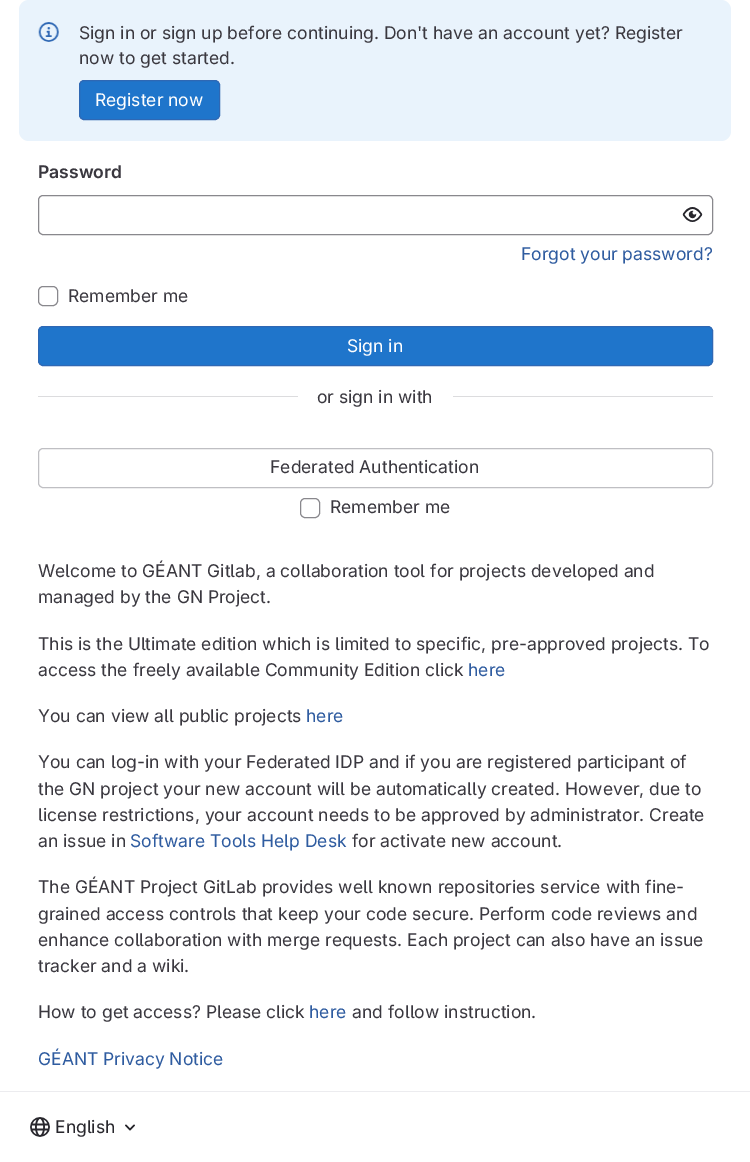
%!PS
<< /PageSize [750 1162] >> setpagedevice
/roundrect { 5 dict begin { /r /h /w /y /x } { exch def } forall
  x r add y moveto x w add y 2 copy h add r arct x w add y h add x 1 index r arct
  x y h add x y r arct x y 2 copy exch w add exch r arct closepath end } def
/picture { 5 dict begin { /h /w /y /x /name } { exch def } forall
  gsave x y translate w h scale
  w h 8 [w 0 0 h 0 0] name (r) file false 3 colorimage grestore end } def
0 1162 translate 1 -1 scale
4 setmiterlimit
1 setgray
0 0 750 1162 rectfill
0.914 0.953 0.988 setrgbcolor
19 0 712 141 10 roundrect fill
(img1.rgb) 38 22 21 20 picture
/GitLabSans-Regular [17.5 0 0 -17.5 0 0] selectfont
0.227 0.22 0.247 setrgbcolor
79 39 moveto (Sign in or sign up before continuing. Don't have an account yet? Register) show
79 64 moveto (now to get started.) show
0.122 0.459 0.796 setrgbcolor
79.5 80.5 140 39 4.5 roundrect gsave fill grestore
0.184 0.408 0.706 setrgbcolor
stroke
1 setgray
95 106 moveto (Register now) show
/GitLabSans-SemiBold [17.5 0 0 -17.5 0 0] selectfont
0.227 0.22 0.247 setrgbcolor
38 178 moveto (Password) show
0.537 0.533 0.553 setrgbcolor
38.5 195.5 674 39 4.5 roundrect stroke
(img2.rgb) 682 207 21 15 picture
/GitLabSans-Regular [17.5 0 0 -17.5 0 0] selectfont
0.184 0.361 0.627 setrgbcolor
521 260 moveto (Forgot your password?) show
0.537 0.533 0.553 setrgbcolor
38.5 286.5 19 19 4.5 roundrect stroke
0.227 0.22 0.247 setrgbcolor
68 302 moveto (Remember me) show
0.122 0.459 0.796 setrgbcolor
38.5 326.5 674 39 4.5 roundrect gsave fill grestore
0.184 0.408 0.706 setrgbcolor
stroke
1 setgray
347 352 moveto (Sign in) show
0.863 0.863 0.871 setrgbcolor
38 396 260 1 rectfill
0.227 0.22 0.247 setrgbcolor
317 403 moveto (or sign in with) show
0.863 0.863 0.871 setrgbcolor
453 396 260 1 rectfill
0.749 0.749 0.765 setrgbcolor
38.5 448.5 674 39 4.5 roundrect stroke
0.227 0.22 0.247 setrgbcolor
270 473 moveto (Federated Authentication) show
0.537 0.533 0.553 setrgbcolor
300.5 498.5 19 19 4.5 roundrect stroke
0.227 0.22 0.247 setrgbcolor
330 513 moveto (Remember me) show
38 577 moveto (Welcome to GÉANT Gitlab, a collaboration tool for projects developed and) show
38 603 moveto (managed by the GN Project.) show
38 650 moveto (This is the Ultimate edition which is limited to specific, pre-approved projects. To) show
38 676 moveto (access the freely available Community Edition click) show
0.184 0.361 0.627 setrgbcolor
468 676 moveto (here) show
0.227 0.22 0.247 setrgbcolor
38 722 moveto (You can view all public projects) show
0.184 0.361 0.627 setrgbcolor
306 722 moveto (here) show
0.227 0.22 0.247 setrgbcolor
38 768 moveto (You can log-in with your Federated IDP and if you are registered participant of) show
38 795 moveto (the GN project your new account will be automatically created. However, due to) show
38 821 moveto (license restrictions, your account needs to be approved by administrator. Create) show
38 847 moveto (an issue in) show
0.184 0.361 0.627 setrgbcolor
130 847 moveto (Software Tools Help Desk) show
0.227 0.22 0.247 setrgbcolor
352 847 moveto (for activate new account.) show
38 893 moveto (The GÉANT Project GitLab provides well known repositories service with fine-) show
38 920 moveto (grained access controls that keep your code secure. Perform code reviews and) show
38 946 moveto (enhance collaboration with merge requests. Each project can also have an issue) show
38 972 moveto (tracker and a wiki.) show
38 1018 moveto (How to get access? Please click) show
0.184 0.361 0.627 setrgbcolor
309 1018 moveto (here) show
0.227 0.22 0.247 setrgbcolor
352 1018 moveto (and follow instruction.) show
0.184 0.361 0.627 setrgbcolor
38 1065 moveto (GÉANT Privacy Notice) show
0.925 0.925 0.937 setrgbcolor
0 1091 750 1 rectfill
(img3.rgb) 30 1117 20 20 picture
0.157 0.153 0.176 setrgbcolor
55 1133 moveto (English) show
(img4.rgb) 125 1124 10 7 picture
showpage
